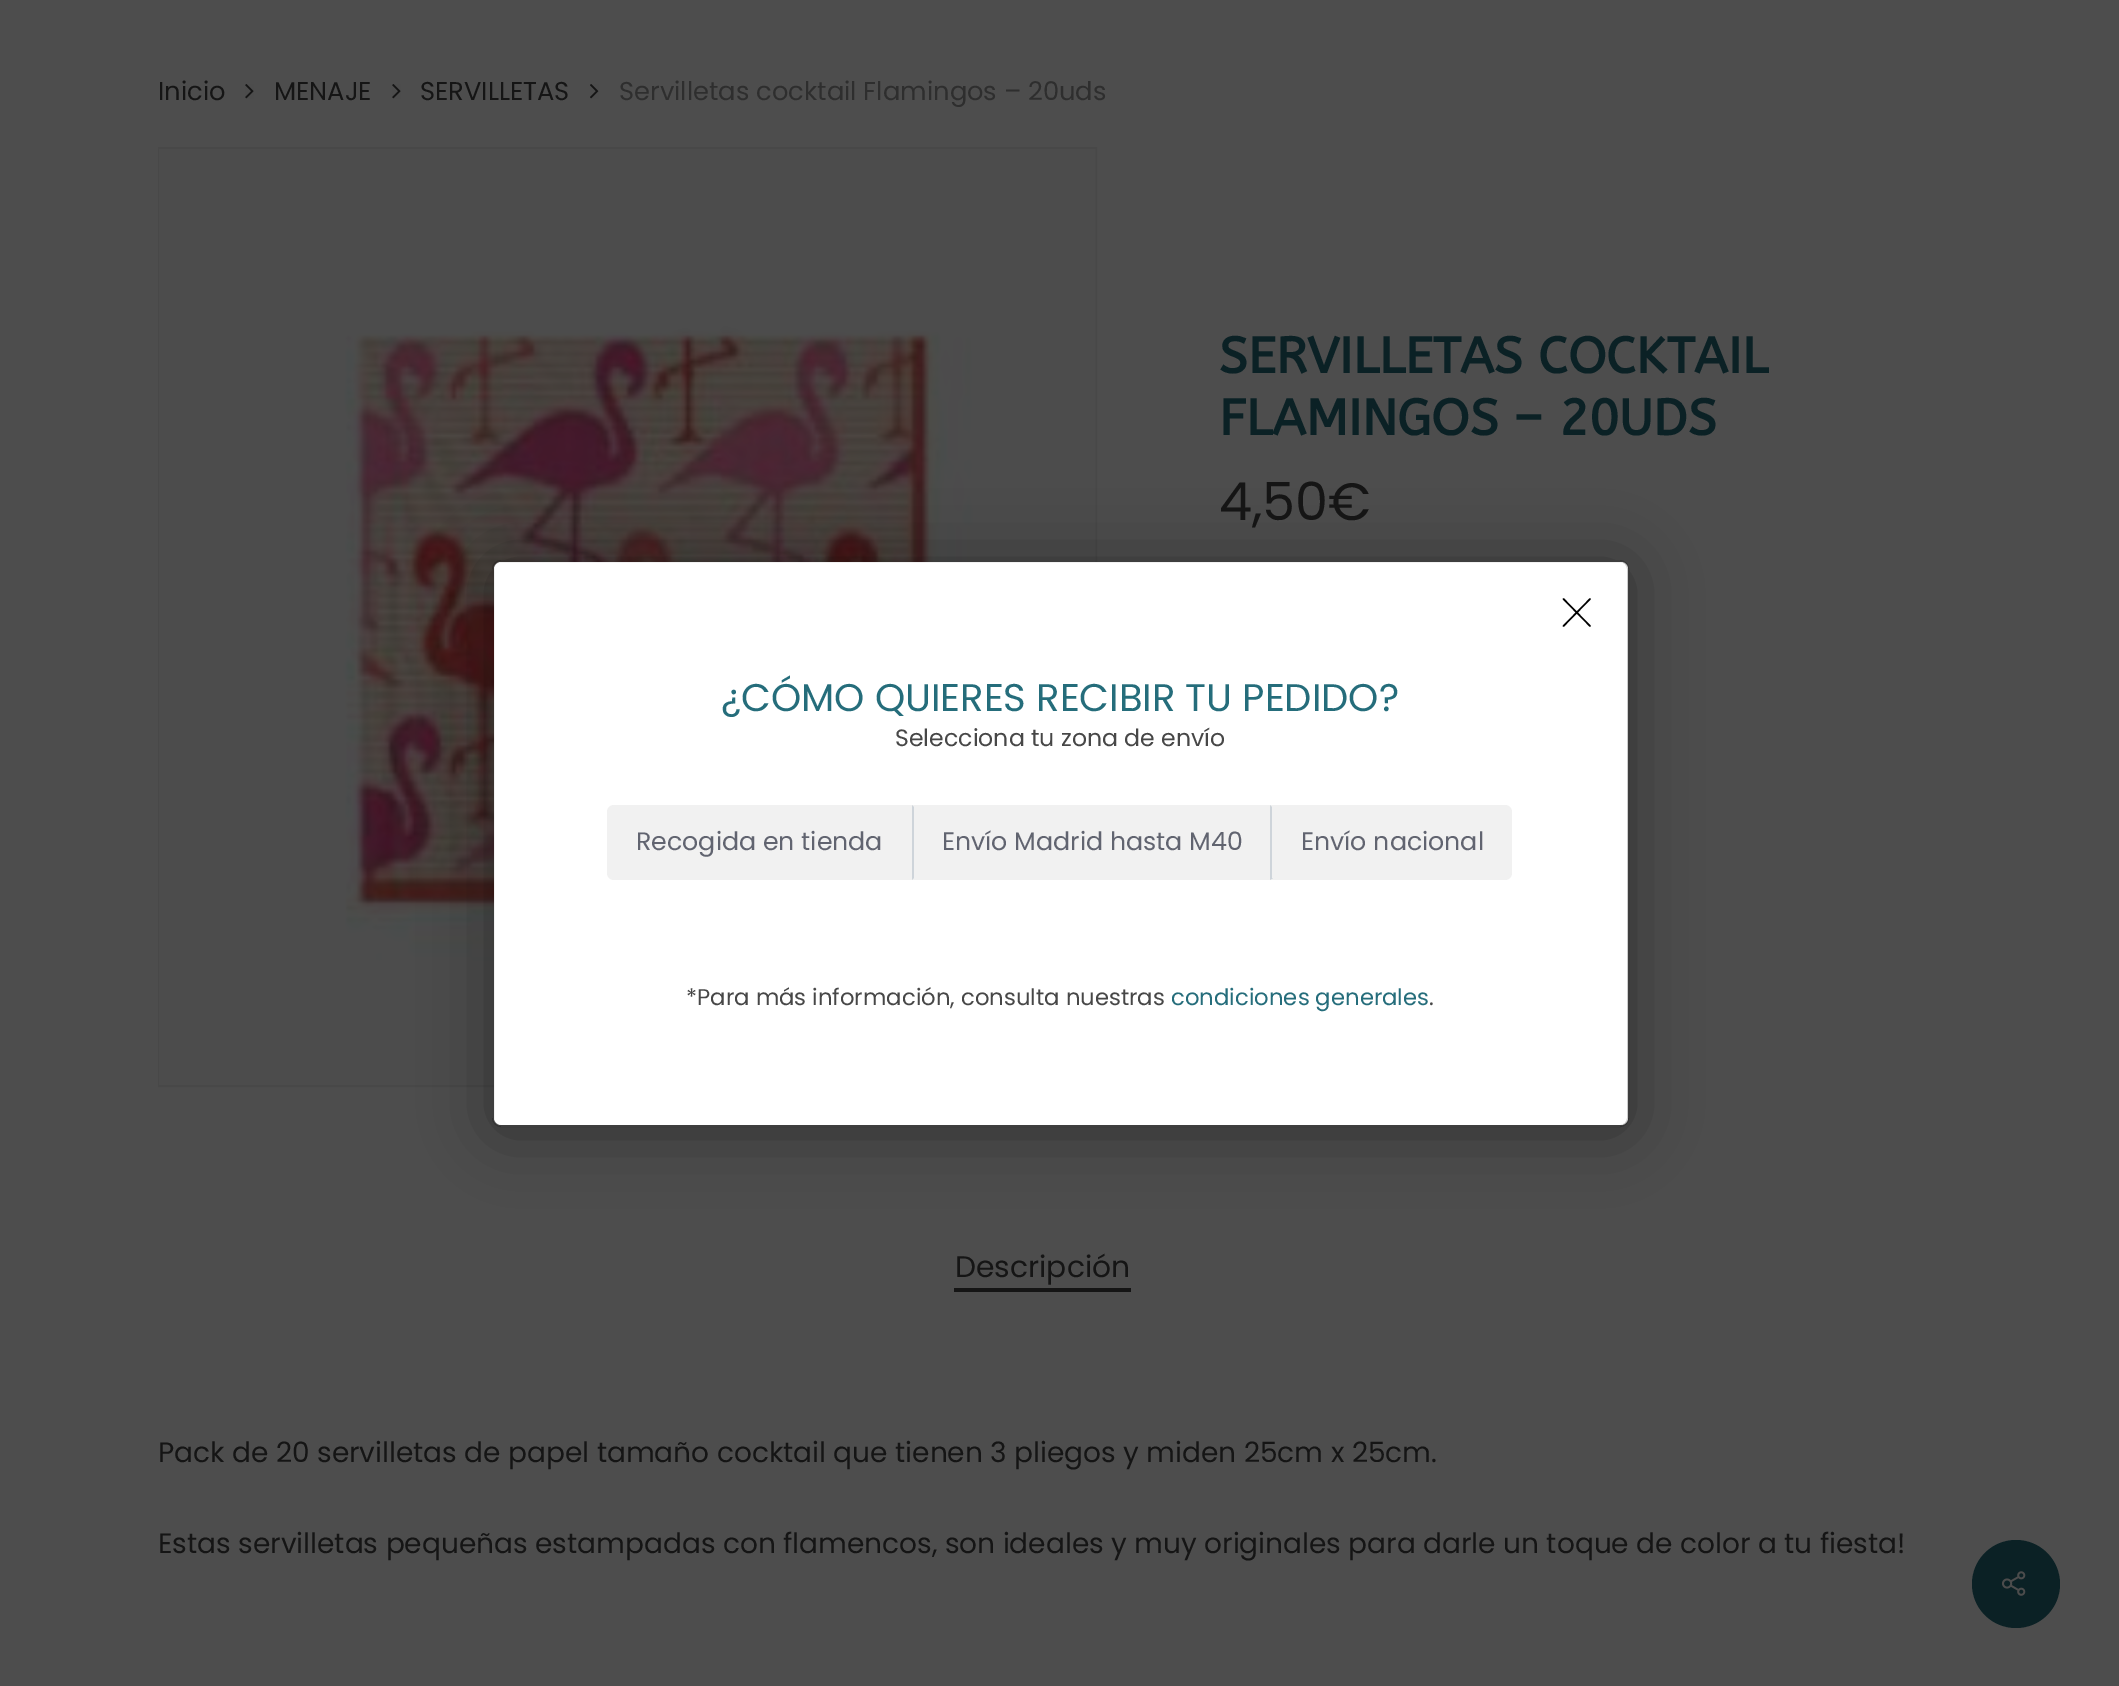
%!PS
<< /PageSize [2119 1686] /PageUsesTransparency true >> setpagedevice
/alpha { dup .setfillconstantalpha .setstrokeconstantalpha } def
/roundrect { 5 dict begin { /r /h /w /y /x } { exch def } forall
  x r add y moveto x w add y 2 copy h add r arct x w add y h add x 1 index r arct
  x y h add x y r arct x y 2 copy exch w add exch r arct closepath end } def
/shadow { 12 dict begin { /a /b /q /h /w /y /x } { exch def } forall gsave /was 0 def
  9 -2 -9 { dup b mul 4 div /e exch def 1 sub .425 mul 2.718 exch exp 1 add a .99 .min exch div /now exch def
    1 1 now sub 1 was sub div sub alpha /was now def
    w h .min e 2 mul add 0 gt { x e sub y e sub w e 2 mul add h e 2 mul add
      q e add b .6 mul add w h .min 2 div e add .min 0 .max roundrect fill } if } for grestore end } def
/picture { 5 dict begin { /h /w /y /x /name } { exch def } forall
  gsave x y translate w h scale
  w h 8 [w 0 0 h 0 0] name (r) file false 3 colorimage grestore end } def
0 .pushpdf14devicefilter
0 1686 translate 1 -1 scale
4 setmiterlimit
0.302 setgray
0 0 2119 1686 rectfill
/Poppins-Regular [25.75 0 0 -25.75 0 0] selectfont
0.082 setgray
158 100 moveto (Inicio) show
(img1.rgb) 245 84 9 15 picture
274 100 moveto (MENAJE) show
(img1.rgb) 392 84 9 15 picture
420 100 moveto (SERVILLETAS) show
(img2.rgb) 590 84 9 15 picture
0.18 setgray
619 100 moveto (Servilletas cocktail Flamingos – 20uds) show
0.282 setgray
2 setlinewidth
159 148 937 938 rectstroke
(img3.rgb) 159 149 937 936 picture
/ABeeZee-Bold [50.5 0 0 -50.5 0 0] selectfont
0.043 0.129 0.145 setrgbcolor
1219 373 moveto (SERVILLETAS COCKTAIL) show
1219 435 moveto (FLAMINGOS – 20UDS) show
/Poppins-Regular [52.5 0 0 -52.5 0 0] selectfont
0.082 setgray
1219 520 moveto (4,50€) show
954 1288 177 4 rectfill
/Poppins-Regular [29.75 0 0 -29.75 0 0] selectfont
955 1277 moveto (Descripción) show
/Poppins-Regular [28 0 0 -28 0 0] selectfont
158 1462 moveto (Pack de 20 servilletas de papel tamaño cocktail que tienen 3 pliegos y miden 25cm x 25cm.) show
158 1553 moveto (Estas servilletas pequeñas estampadas con flamencos, son ideales y muy originales para darle un toque de color a tu fiesta!) show
0.043 0.129 0.145 setrgbcolor
newpath 2016 1584 44 0 360 arc closepath fill
(img4.rgb) 2001 1571 25 25 picture
gsave
newpath 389 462 moveto 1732 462 lineto 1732 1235 lineto 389 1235 lineto closepath 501 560 moveto 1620 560 lineto 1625 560 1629 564 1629 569 curveto 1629 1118 lineto 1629 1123 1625 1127 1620 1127 curveto 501 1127 lineto 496 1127 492 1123 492 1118 curveto 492 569 lineto 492 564 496 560 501 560 curveto closepath eoclip newpath
0 setgray
492 565 1137 567 9 34 0.36 shadow
grestore
1 setgray
494 562 1134 563 7 roundrect fill
0.2 alpha
0 setgray
493 561 1135 565 8 roundrect stroke
1 alpha
1.5 setlinewidth
1 setlinecap
1 setlinejoin
newpath 1563.5 599 moveto 1590 626 lineto 1590 599 moveto 1563.5 626 lineto stroke
/Poppins-Regular [38.5 0 0 -38.5 0 0] selectfont
0.145 0.427 0.482 setrgbcolor
721 711 moveto (¿CÓMO QUIERES RECIBIR TU PEDIDO?) show
/Poppins-Regular [23.6 0 0 -23.6 0 0] selectfont
0.278 setgray
895 746 moveto (Selecciona tu zona de envío) show
0.945 setgray
newpath 614 805 moveto 912 805 lineto 912 880 lineto 614 880 lineto 610 880 607 877 607 873 curveto 607 812 lineto 607 808 610 805 614 805 curveto closepath fill
/Poppins-Regular [25.25 0 0 -25.25 0 0] selectfont
0.38 0.392 0.439 setrgbcolor
636 850 moveto (Recogida en tienda) show
0.945 setgray
912 805 359 75 rectfill
0.808 0.831 0.855 setrgbcolor
newpath 912 880 moveto 912 805 lineto 914 807 lineto 914 878 lineto closepath fill
0.38 0.392 0.439 setrgbcolor
942 850 moveto (Envío Madrid hasta M40) show
0.945 setgray
newpath 1271 805 moveto 1505 805 lineto 1509 805 1512 808 1512 812 curveto 1512 873 lineto 1512 877 1509 880 1505 880 curveto 1271 880 lineto closepath fill
0.808 0.831 0.855 setrgbcolor
newpath 1272 807 moveto 1272 878 lineto 1273 878 lineto 1270 880 lineto 1270 805 lineto closepath fill
0.38 0.392 0.439 setrgbcolor
1301 850 moveto (Envío nacional) show
/Poppins-Regular [22.75 0 0 -22.75 0 0] selectfont
0.278 setgray
686 1005 moveto (*Para más información, consulta nuestras) show
0.145 0.427 0.482 setrgbcolor
1171 1005 moveto (condiciones generales) show
0.278 setgray
1429 1005 moveto (.) show
.poppdf14devicefilter showpage
